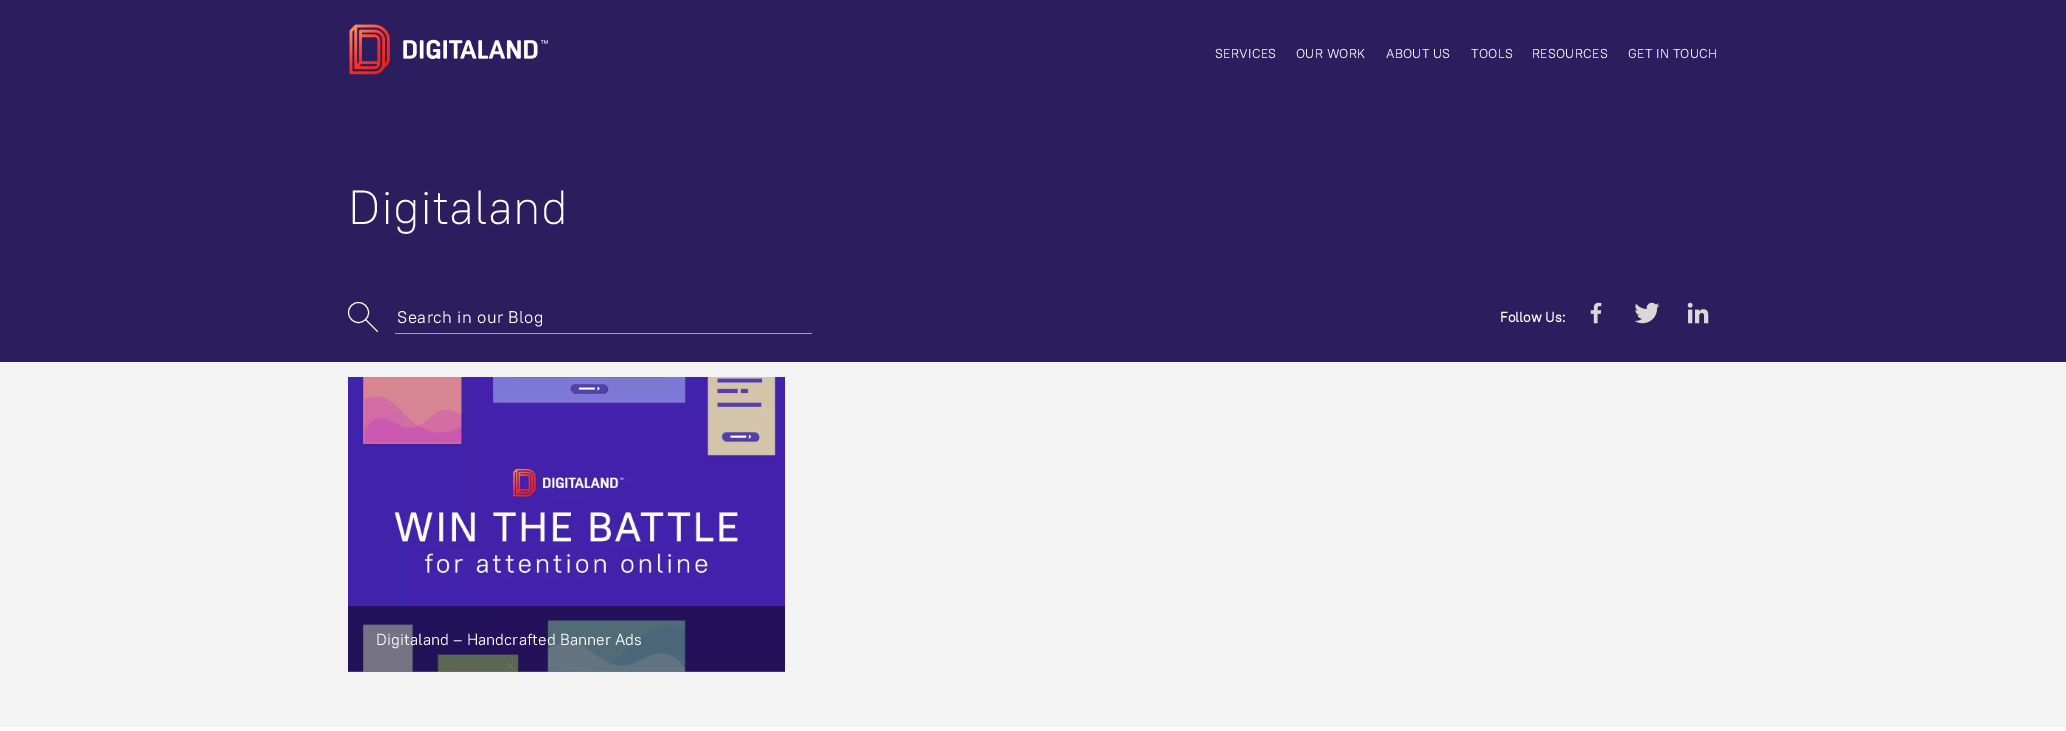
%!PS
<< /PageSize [2066 731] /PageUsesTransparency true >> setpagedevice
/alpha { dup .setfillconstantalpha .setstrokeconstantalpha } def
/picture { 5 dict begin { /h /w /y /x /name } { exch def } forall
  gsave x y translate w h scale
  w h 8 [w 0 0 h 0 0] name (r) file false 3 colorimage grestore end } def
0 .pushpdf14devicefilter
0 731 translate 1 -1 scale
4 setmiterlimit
1 setgray
0 0 2066 731 rectfill
0.173 0.118 0.369 setrgbcolor
0 0 2066 362 rectfill
(img1.rgb) 349 24 199 51 picture
/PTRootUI-Regular [13 0 0 -13 0 0] selectfont
1 setgray
1215 58 moveto 0.25 0 (SERVICES) ashow
1296 58 moveto 0.25 0 (OUR WORK) ashow
1386 58 moveto 0.25 0 (ABOUT US) ashow
1471 58 moveto 0.25 0 (TOOLS) ashow
1532 58 moveto 0.25 0 (RESOURCES) ashow
1628 58 moveto 0.25 0 (GET IN TOUCH) ashow
/PTRootUI-Light [48 0 0 -48 0 0] selectfont
348 224 moveto (Digitaland) show
1 setlinecap
newpath 365.5 319.5 moveto 377.5 331.5 lineto stroke
0 setlinecap
newpath 358.5 312.5 10 0 360 arc closepath stroke
0.651 setgray
395 333 417 1 rectfill
/PTRootUI-Regular [17 0 0 -17 0 0] selectfont
1 setgray
397 323 moveto 0.4 0 (Search in our Blog) ashow
/PTRootUI-Bold [14 0 0 -14 0 0] selectfont
1500 322 moveto (Follow Us:) show
(img2.rgb) 1590 302 12 22 picture
(img3.rgb) 1634 302 26 22 picture
(img4.rgb) 1687 302 22 22 picture
0.953 setgray
0 362 2066 365 rectfill
(img5.rgb) 348 377 437 295 picture
0.48 alpha
0 setgray
348 606 437 66 rectfill
/PTRootUI-Regular [16 0 0 -16 0 0] selectfont
1 alpha
1 setgray
376 645 moveto (Digitaland – Handcrafted Banner Ads) show
.poppdf14devicefilter showpage
